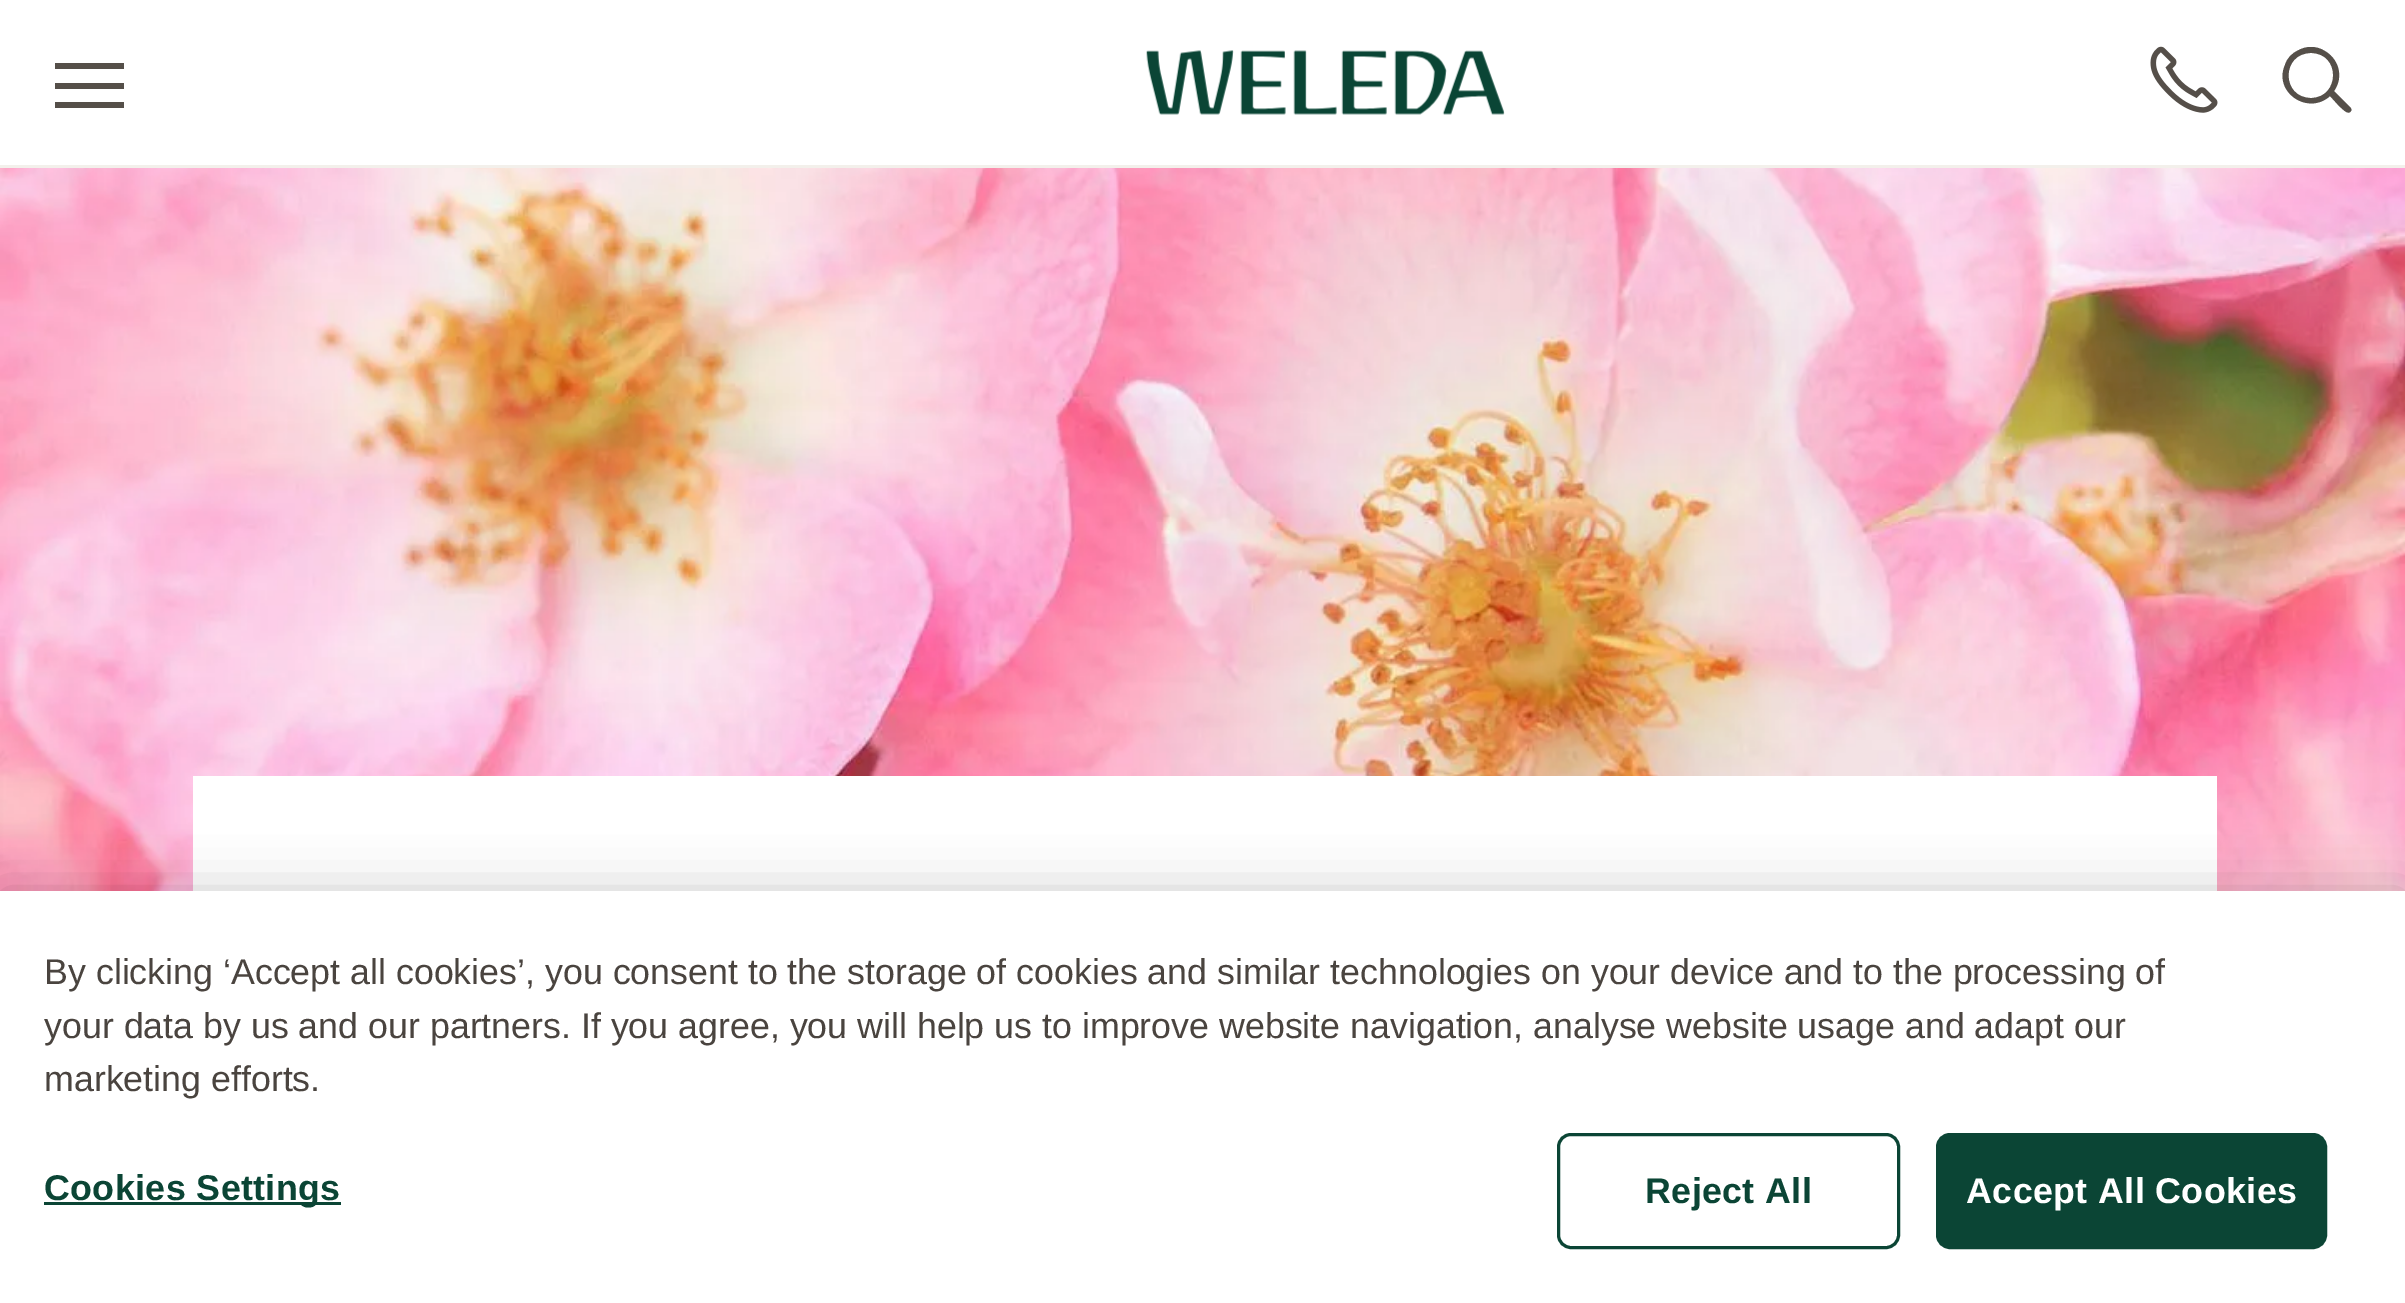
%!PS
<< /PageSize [2405 1303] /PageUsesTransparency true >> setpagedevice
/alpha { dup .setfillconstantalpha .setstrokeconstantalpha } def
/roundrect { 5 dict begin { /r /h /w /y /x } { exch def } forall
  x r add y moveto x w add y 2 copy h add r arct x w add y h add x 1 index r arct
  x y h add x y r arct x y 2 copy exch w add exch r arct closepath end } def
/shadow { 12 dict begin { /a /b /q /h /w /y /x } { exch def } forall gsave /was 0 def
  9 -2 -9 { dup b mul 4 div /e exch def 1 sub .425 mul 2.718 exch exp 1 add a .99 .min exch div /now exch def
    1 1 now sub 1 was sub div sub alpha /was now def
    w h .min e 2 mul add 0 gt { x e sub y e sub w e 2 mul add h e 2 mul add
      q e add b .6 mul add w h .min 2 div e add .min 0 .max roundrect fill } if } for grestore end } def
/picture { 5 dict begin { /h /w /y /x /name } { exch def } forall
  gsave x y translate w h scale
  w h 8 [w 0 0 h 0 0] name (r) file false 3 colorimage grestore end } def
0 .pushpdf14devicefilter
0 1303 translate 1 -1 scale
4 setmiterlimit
1 setgray
0 0 2405 1303 rectfill
0.953 0.941 0.922 setrgbcolor
0 165 2405 3 rectfill
0.333 0.31 0.286 setrgbcolor
55 83 69 6 rectfill
55 63 69 6 rectfill
55 102 69 6 rectfill
(img1.rgb) 1146 50 359 65 picture
(img2.rgb) 2150 46 68 67 picture
newpath 2350 107 moveto 2334 91 lineto 2344 77 2339 58 2323 50 curveto 2316 46 2306 46 2299 50 curveto 2292 53 2287 58 2285 65 curveto 2273 92 2308 116 2330 96 curveto 2340 107 lineto 2342 108 2348 116 2351 111 curveto 2352 110 2351 108 2350 107 curveto closepath 2311 98 moveto 2281 98 2281 53 2311 53 curveto 2341 53 2340 98 2311 98 curveto closepath fill
(img3.rgb) 0 168 2405 723 picture
1 setgray
193 776 2024 115 rectfill
0 setgray
0 891 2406 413 0 25 0.2 shadow
1 setgray
0 891 2405 412 rectfill
/LiberationSans-Regular [35.77 0 0 -35.77 0 0] selectfont
0.29 0.267 0.247 setrgbcolor
44 984 moveto (By clicking ‘Accept all cookies’, you consent to the storage of cookies and similar technologies on your device and to the processing of) show
44 1038 moveto (your data by us and our partners. If you agree, you will help us to improve website navigation, analyse website usage and adapt our) show
44 1091 moveto (marketing efforts.) show
0.043 0.271 0.208 setrgbcolor
44 1202 297 3 rectfill
/LiberationSans-Bold [35.77 0 0 -35.77 0 0] selectfont
44 1200 moveto 0.4 0 (Cookies Settings) ashow
3 setlinewidth
1558.5 1134.5 340 113 12.5 roundrect stroke
1645 1203 moveto 0.4 0 (Reject All) ashow
1937.5 1134.5 388 113 12.5 roundrect gsave fill grestore
stroke
1 setgray
1966 1203 moveto 0.4 0 (Accept All Cookies) ashow
.poppdf14devicefilter showpage
